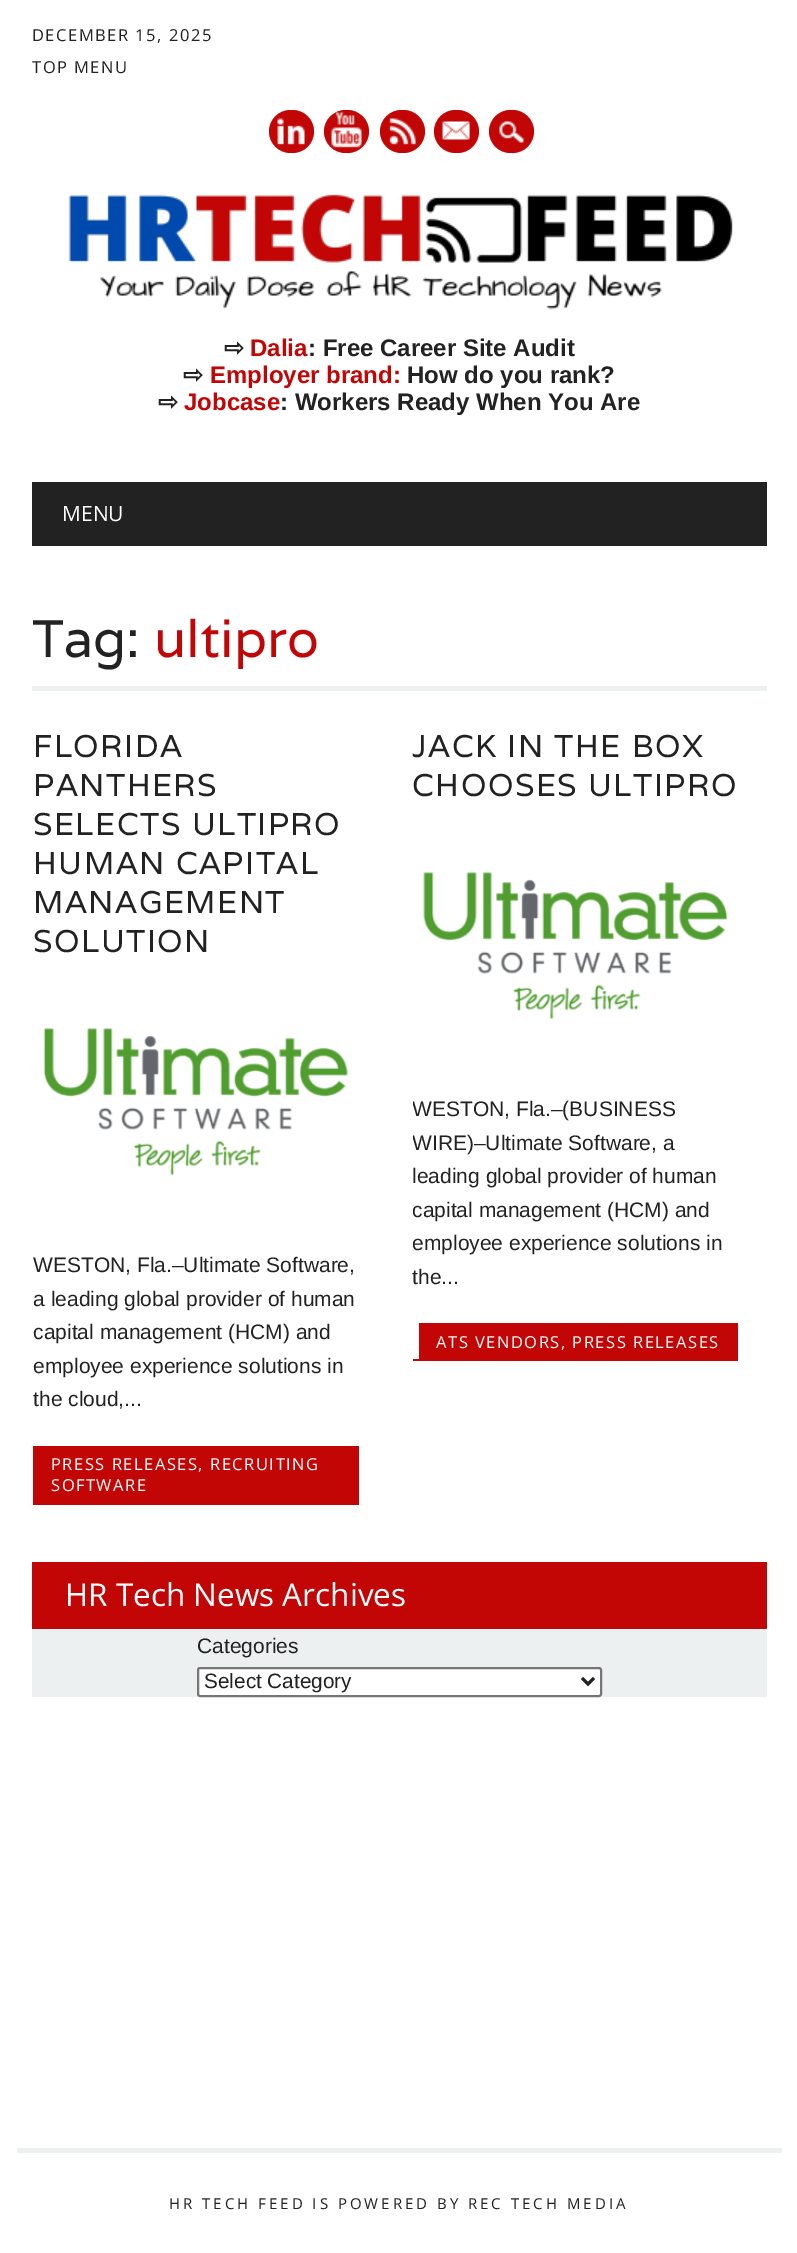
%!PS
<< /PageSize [797 2253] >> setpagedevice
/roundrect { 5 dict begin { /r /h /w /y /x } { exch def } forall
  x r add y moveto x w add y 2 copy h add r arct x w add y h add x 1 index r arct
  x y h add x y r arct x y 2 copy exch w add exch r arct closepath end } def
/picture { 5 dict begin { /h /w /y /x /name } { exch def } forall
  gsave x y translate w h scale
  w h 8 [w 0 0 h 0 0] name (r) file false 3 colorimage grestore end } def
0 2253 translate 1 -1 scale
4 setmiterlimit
1 setgray
0 0 797 2253 rectfill
/OpenSans-Regular [16.5 0 0 -16.5 0 0] selectfont
0.133 setgray
32 41 moveto 1.5 0 (DECEMBER 15, 2025) ashow
32 73 moveto 1.5 0 (TOP MENU) ashow
0.761 0.024 0.024 setrgbcolor
269 110 45 43 21.5 roundrect fill
(img1.rgb) 277 118 28 27 picture
324 110 45 43 21.5 roundrect fill
(img2.rgb) 331 112 31 36 picture
380 110 45 43 21.5 roundrect fill
(img3.rgb) 389 118 27 27 picture
434 110 45 43 21.5 roundrect fill
(img4.rgb) 442 121 28 19 picture
489 110 45 43 21.5 roundrect fill
(img5.rgb) 499 121 25 22 picture
(img6.rgb) 68 194 665 116 picture
/DejaVuSans-Bold [24 0 0 -24 0 0] selectfont
0.133 setgray
224 356 moveto (⇨) show
/LiberationSans-Bold [24 0 0 -24 0 0] selectfont
0.761 0.024 0.024 setrgbcolor
250 356 moveto (Dalia) show
0.133 setgray
308 356 moveto (: Free Career Site Audit) show
/DejaVuSans-Bold [24 0 0 -24 0 0] selectfont
183 383 moveto (⇨) show
/LiberationSans-Bold [24 0 0 -24 0 0] selectfont
0.761 0.024 0.024 setrgbcolor
210 383 moveto (Employer brand:) show
0.133 setgray
407 383 moveto (How do you rank?) show
/DejaVuSans-Bold [24 0 0 -24 0 0] selectfont
158 410 moveto (⇨) show
/LiberationSans-Bold [24 0 0 -24 0 0] selectfont
0.761 0.024 0.024 setrgbcolor
184 410 moveto (Jobcase) show
0.133 setgray
280 410 moveto (: Workers Ready When You Are) show
32 482 735 64 rectfill
/OpenSans-Regular [21 0 0 -21 0 0] selectfont
1 setgray
62 521 moveto (MENU) show
0.925 0.941 0.945 setrgbcolor
32 686 735 5 rectfill
/Varela-Regular [52.5 0 0 -52.5 0 0] selectfont
0.133 setgray
32 657 moveto (Tag:) show
0.761 0.024 0.024 setrgbcolor
154 657 moveto (ultipro) show
/Varela-Regular [31.5 0 0 -31.5 0 0] selectfont
0.133 setgray
33 757 moveto 1.5 0 (FLORIDA) ashow
33 796 moveto 1.5 0 (PANTHERS) ashow
33 835 moveto 1.5 0 (SELECTS ULTIPRO) ashow
33 874 moveto 1.5 0 (HUMAN CAPITAL) ashow
33 913 moveto 1.5 0 (MANAGEMENT) ashow
33 952 moveto 1.5 0 (SOLUTION) ashow
(img7.rgb) 43 1028 305 148 picture
/LiberationSans-Regular [21 0 0 -21 0 0] selectfont
33 1272 moveto (WESTON, Fla.–Ultimate Software,) show
33 1306 moveto (a leading global provider of human) show
33 1339 moveto (capital management \(HCM\) and) show
33 1373 moveto (employee experience solutions in) show
33 1406 moveto (the cloud,...) show
0.761 0.024 0.024 setrgbcolor
33 1446 326 59 rectfill
/OpenSans-Regular [16.5 0 0 -16.5 0 0] selectfont
1 setgray
51 1470 moveto 1.5 0 (PRESS RELEASES, RECRUITING) ashow
51 1491 moveto 1.5 0 (SOFTWARE) ashow
/Varela-Regular [31.5 0 0 -31.5 0 0] selectfont
0.133 setgray
412 757 moveto 1.5 0 (JACK IN THE BOX) ashow
412 796 moveto 1.5 0 (CHOOSES ULTIPRO) ashow
(img8.rgb) 423 872 305 148 picture
gsave
413 1092 325 201 rectclip
/LiberationSans-Regular [21 0 0 -21 0 0] selectfont
412 1116 moveto (WESTON, Fla.–\(BUSINESS) show
412 1150 moveto (WIRE\)–Ultimate Software, a) show
grestore
/LiberationSans-Regular [21 0 0 -21 0 0] selectfont
412 1183 moveto (leading global provider of human) show
gsave
413 1092 325 201 rectclip
412 1217 moveto (capital management \(HCM\) and) show
412 1250 moveto (employee experience solutions in) show
grestore
412 1284 moveto (the...) show
0.761 0.024 0.024 setrgbcolor
419 1323 319 36 rectfill
/OpenSans-Regular [16.5 0 0 -16.5 0 0] selectfont
1 setgray
436 1348 moveto 1.5 0 (ATS VENDORS, PRESS RELEASES) ashow
0.761 0.024 0.024 setrgbcolor
413 1359 325 2 rectfill
0.925 0.941 0.945 setrgbcolor
32 1629 735 68 rectfill
0.761 0.024 0.024 setrgbcolor
32 1562 735 67 rectfill
/OpenSans-Regular [31.5 0 0 -31.5 0 0] selectfont
1 setgray
65 1606 moveto (HR Tech News Archives) show
/LiberationSans-Regular [21 0 0 -21 0 0] selectfont
0.133 setgray
197 1653 moveto (Categories) show
1 setgray
198 1668 403 28 2 roundrect gsave fill grestore
0.463 setgray
2 setlinewidth
stroke
0.133 setgray
3 setlinewidth
newpath 582 1678 moveto 588 1684 lineto 594 1678 lineto stroke
/LiberationSans-Regular [20.75 0 0 -20.75 0 0] selectfont
204 1688 moveto (Select Category) show
0.925 0.941 0.945 setrgbcolor
17 2148 765 5 rectfill
/OpenSans-Regular [15 0 0 -15 0 0] selectfont
0.133 setgray
169 2209 moveto 3 0 (HR TECH FEED IS POWERED BY REC TECH MEDIA) ashow
showpage
